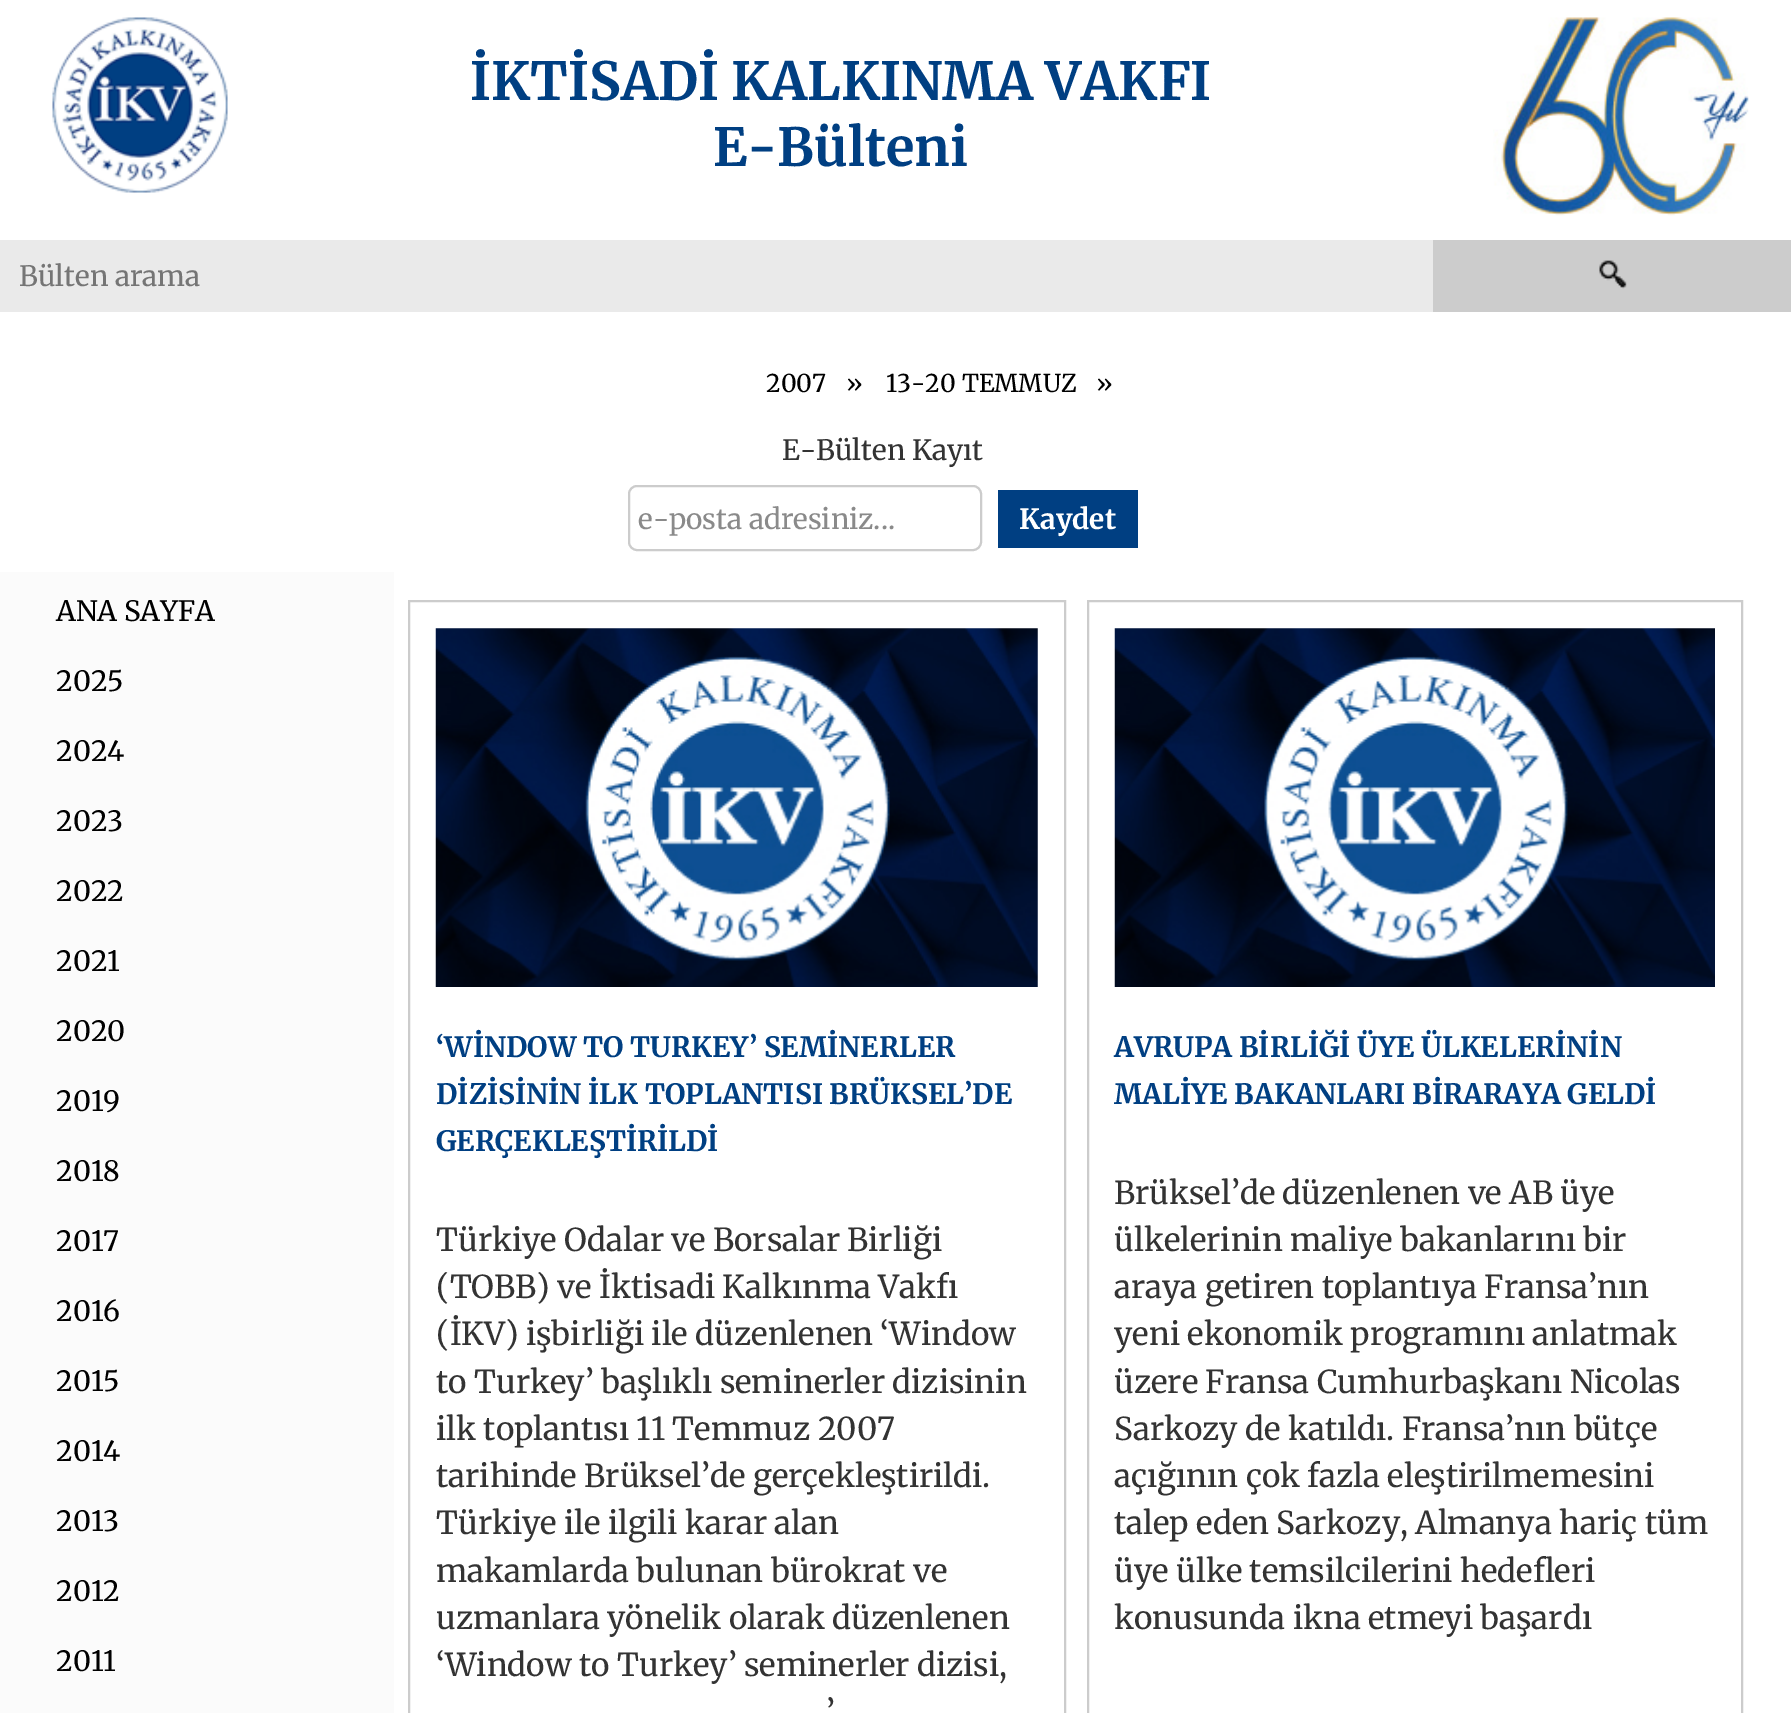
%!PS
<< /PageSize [1791 1713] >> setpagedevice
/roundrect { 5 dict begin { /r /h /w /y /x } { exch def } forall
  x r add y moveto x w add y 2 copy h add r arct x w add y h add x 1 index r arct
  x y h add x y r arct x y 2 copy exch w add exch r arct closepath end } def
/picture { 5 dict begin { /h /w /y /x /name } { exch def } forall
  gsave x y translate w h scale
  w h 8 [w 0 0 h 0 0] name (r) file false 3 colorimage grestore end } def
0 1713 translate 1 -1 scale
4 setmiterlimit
1 setgray
0 0 1791 1713 rectfill
(img1.rgb) 52 17 176 176 picture
/Merriweather-Bold [52.5 0 0 -52.5 0 0] selectfont
0 0.247 0.51 setrgbcolor
470 100 moveto (İKTİSADİ KALKINMA VAKFI) show
713 166 moveto (E-Bülteni) show
(img2.rgb) 1493 17 256 199 picture
0.918 setgray
0 240 1433 72 rectfill
/Merriweather-Regular [28 0 0 -28 0 0] selectfont
0.459 setgray
19 286 moveto (Bülten arama) show
0.8 setgray
1433 240 358 72 rectfill
(img3.rgb) 1599 260 28 29 picture
/Merriweather-Regular [24.5 0 0 -24.5 0 0] selectfont
0 setgray
766 392 moveto (2007) show
846 392 moveto (») show
886 392 moveto (13-20 TEMMUZ) show
1096 392 moveto (») show
/Merriweather-Regular [28 0 0 -28 0 0] selectfont
0.2 setgray
782 460 moveto (E-Bülten Kayıt) show
0.8 setgray
2 setlinewidth
629 486 352 64 8 roundrect stroke
0.541 setgray
638 529 moveto (e-posta adresiniz...) show
0 0.247 0.51 setrgbcolor
998 490 140 58 rectfill
/Merriweather-Bold [28 0 0 -28 0 0] selectfont
1 setgray
1019 529 moveto (Kaydet) show
0.984 setgray
0 572 394 1141 rectfill
/Merriweather-Regular [28 0 0 -28 0 0] selectfont
0 setgray
56 621 moveto (ANA SAYFA) show
56 691 moveto (2025) show
56 761 moveto (2024) show
56 831 moveto (2023) show
56 901 moveto (2022) show
56 971 moveto (2021) show
56 1041 moveto (2020) show
56 1111 moveto (2019) show
56 1181 moveto (2018) show
56 1251 moveto (2017) show
56 1321 moveto (2016) show
56 1391 moveto (2015) show
56 1461 moveto (2014) show
56 1531 moveto (2013) show
56 1601 moveto (2012) show
56 1671 moveto (2011) show
0.8 setgray
409 601 656 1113 rectstroke
(img4.rgb) 435 628 603 359 picture
/Merriweather-Bold [28 0 0 -28 0 0] selectfont
0 0.247 0.51 setrgbcolor
436 1057 moveto (‘WİNDOW TO TURKEY’ SEMİNERLER) show
436 1104 moveto (DİZİSİNİN İLK TOPLANTISI BRÜKSEL’DE) show
436 1151 moveto (GERÇEKLEŞTİRİLDİ) show
/Merriweather-Regular [31.5 0 0 -31.5 0 0] selectfont
0.2 setgray
436 1251 moveto (Türkiye Odalar ve Borsalar Birliği) show
436 1298 moveto (\(TOBB\) ve İktisadi Kalkınma Vakfı) show
436 1345 moveto (\(İKV\) işbirliği ile düzenlenen ‘Window) show
436 1393 moveto (to Turkey’ başlıklı seminerler dizisinin) show
436 1440 moveto (ilk toplantısı 11 Temmuz 2007) show
436 1487 moveto (tarihinde Brüksel’de gerçekleştirildi.) show
436 1534 moveto (Türkiye ile ilgili karar alan) show
436 1582 moveto (makamlarda bulunan bürokrat ve) show
436 1629 moveto (uzmanlara yönelik olarak düzenlenen) show
436 1676 moveto (‘Window to Turkey’ seminerler dizisi,) show
826 1723 moveto (’) show
0.8 setgray
1088 601 654 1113 rectstroke
(img5.rgb) 1114 628 601 359 picture
/Merriweather-Bold [28 0 0 -28 0 0] selectfont
0 0.247 0.51 setrgbcolor
1114 1057 moveto (AVRUPA BİRLİĞİ ÜYE ÜLKELERİNİN) show
1114 1104 moveto (MALİYE BAKANLARI BİRARAYA GELDİ) show
/Merriweather-Regular [31.5 0 0 -31.5 0 0] selectfont
0.2 setgray
1114 1204 moveto (Brüksel’de düzenlenen ve AB üye) show
1114 1251 moveto (ülkelerinin maliye bakanlarını bir) show
1114 1298 moveto (araya getiren toplantıya Fransa’nın) show
1114 1345 moveto (yeni ekonomik programını anlatmak) show
1114 1393 moveto (üzere Fransa Cumhurbaşkanı Nicolas) show
1114 1440 moveto (Sarkozy de katıldı. Fransa’nın bütçe) show
1114 1487 moveto (açığının çok fazla eleştirilmemesini) show
1114 1534 moveto (talep eden Sarkozy, Almanya hariç tüm) show
1114 1582 moveto (üye ülke temsilcilerini hedefleri) show
1114 1629 moveto (konusunda ikna etmeyi başardı) show
showpage
